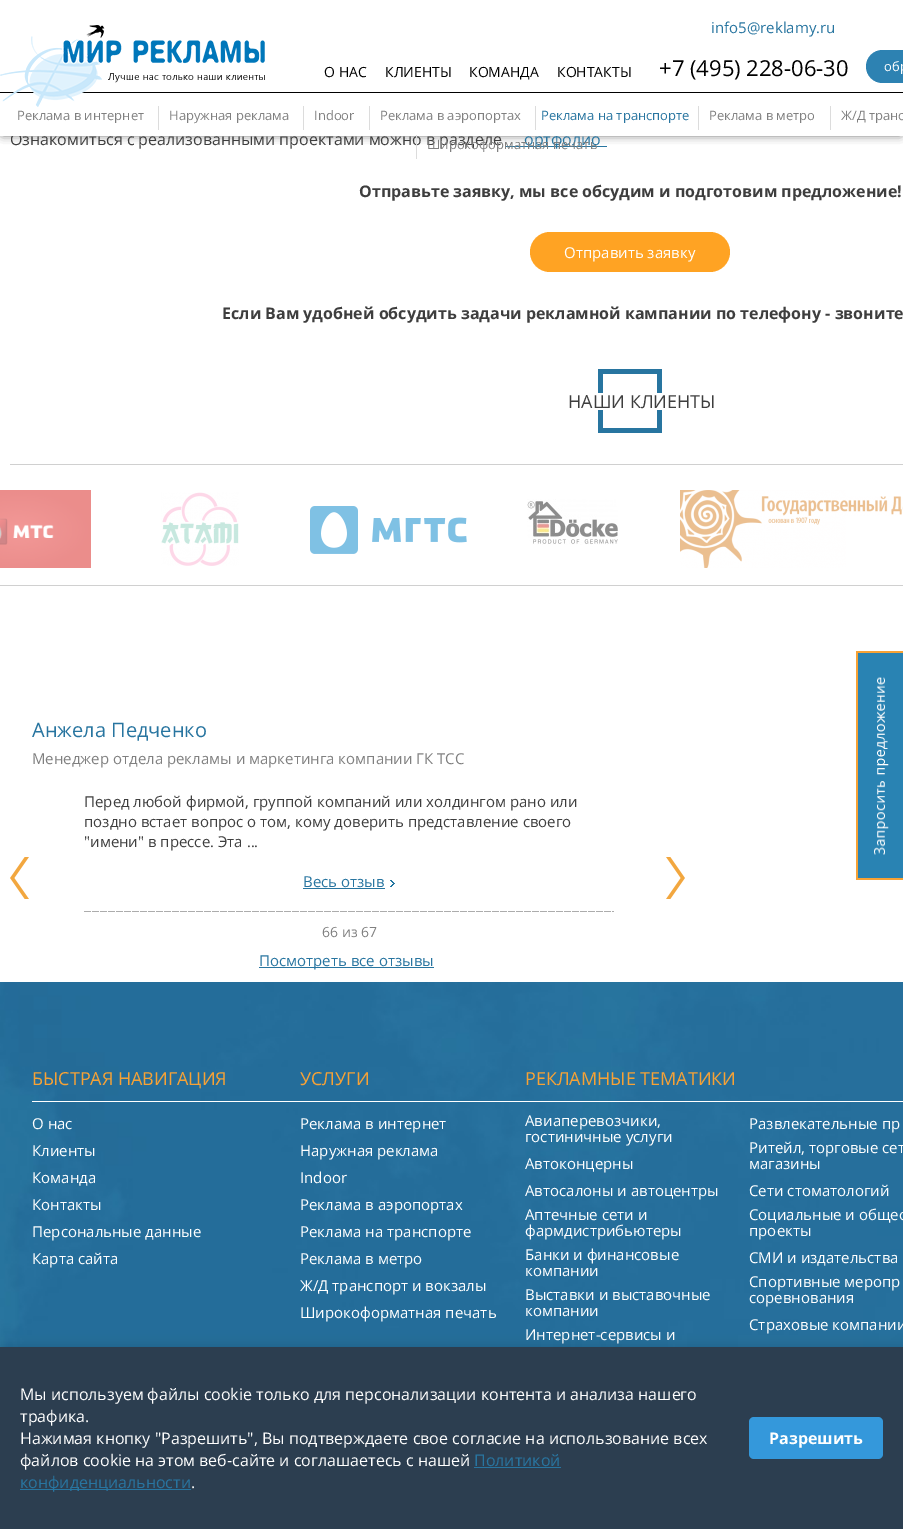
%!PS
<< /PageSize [903 1529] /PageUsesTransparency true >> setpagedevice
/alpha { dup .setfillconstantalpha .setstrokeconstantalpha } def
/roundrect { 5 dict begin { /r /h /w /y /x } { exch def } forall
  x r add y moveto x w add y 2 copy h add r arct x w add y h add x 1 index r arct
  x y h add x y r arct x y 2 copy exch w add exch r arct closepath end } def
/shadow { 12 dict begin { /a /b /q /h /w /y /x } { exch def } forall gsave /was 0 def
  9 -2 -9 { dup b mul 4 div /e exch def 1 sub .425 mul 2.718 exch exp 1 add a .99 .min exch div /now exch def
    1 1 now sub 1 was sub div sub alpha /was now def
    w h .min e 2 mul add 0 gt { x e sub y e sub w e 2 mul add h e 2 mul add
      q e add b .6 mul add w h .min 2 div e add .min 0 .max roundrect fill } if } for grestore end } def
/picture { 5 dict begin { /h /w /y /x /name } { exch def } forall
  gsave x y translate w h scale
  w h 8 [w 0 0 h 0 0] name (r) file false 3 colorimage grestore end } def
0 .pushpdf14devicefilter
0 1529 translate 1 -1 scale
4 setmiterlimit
1 setgray
0 0 903 1529 rectfill
0.157 0.459 0.627 setrgbcolor
506 146 101 1 rectfill
0 setgray
3 3 897 130 0 5 1 shadow
/OpenSans-Regular [16 0 0 -16 0 0] selectfont
0.243 setgray
10 145 moveto (Ознакомиться с реализованными проектами можно в разделе) show
0.157 0.459 0.627 setrgbcolor
524 145 moveto (ортфолио) show
1 setgray
0 0 903 136 rectfill
0 setgray
0 92 903 1 rectfill
/OpenSans-Regular [14 0 0 -14 0 0] selectfont
324 77 moveto (О НАС) show
385 77 moveto (КЛИЕНТЫ) show
469 77 moveto (КОМАНДА) show
557 77 moveto (КОНТАКТЫ) show
/OpenSans-Regular [15 0 0 -15 0 0] selectfont
0.157 0.459 0.627 setrgbcolor
711 33 moveto (info5@reklamy.ru) show
/OpenSans-Regular [22 0 0 -22 0 0] selectfont
0 setgray
659 76 moveto (+7 \(495\) 228-06-30) show
0.176 0.51 0.698 setrgbcolor
866 50 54 33 16.5 roundrect fill
/OpenSans-Regular [13 0 0 -13 0 0] selectfont
1 setgray
884 71 moveto (обр) show
0.502 setgray
17 120 moveto (Реклама в интернет) show
(img1.rgb) 0 25 265 82 picture
0.863 setgray
158 106 1 24 rectfill
0.502 setgray
169 120 moveto (Наружная реклама) show
0.863 setgray
303 106 1 24 rectfill
0.502 setgray
314 120 moveto (Indoor) show
0.863 setgray
369 106 1 24 rectfill
0.502 setgray
380 120 moveto (Реклама в аэропортах) show
0.863 setgray
535 106 1 24 rectfill
0.157 0.459 0.627 setrgbcolor
541 120 moveto (Реклама на транспорте) show
0.863 setgray
698 106 1 24 rectfill
0.502 setgray
709 120 moveto (Реклама в метро) show
0.863 setgray
830 106 1 24 rectfill
0.502 setgray
841 120 moveto (Ж/Д транс) show
0.863 setgray
416 135 1 24 rectfill
0.502 setgray
427 149 moveto (Широкоформатная печать) show
/OpenSans-Bold [16 0 0 -16 0 0] selectfont
0.243 setgray
359 197 moveto (Отправьте заявку, мы все обсудим и подготовим предложение!) show
1 0.639 0.137 setrgbcolor
530 232 200 40 20 roundrect fill
/OpenSans-Regular [15 0 0 -15 0 0] selectfont
1 setgray
564 258 moveto (Отправить заявку) show
/OpenSans-Bold [16 0 0 -16 0 0] selectfont
0.243 setgray
222 319 moveto (Если Вам удобней обсудить задачи рекламной кампании по телефону - звоните) show
(img2.rgb) 598 369 64 64 picture
/OpenSans-Regular [18 0 0 -18 0 0] selectfont
568 408 moveto (НАШИ КЛИЕНТЫ) show
0.816 setgray
10 464 893 1 rectfill
(img3.rgb) 0 490 91 78 picture
(img4.rgb) 161 492 78 74 picture
(img5.rgb) 310 506 157 48 picture
(img6.rgb) 527 499 91 46 picture
(img7.rgb) 680 490 223 78 picture
0 585 903 1 rectfill
/OpenSans-Regular [20 0 0 -20 0 0] selectfont
0.157 0.459 0.627 setrgbcolor
32 737 moveto (Анжела Педченко) show
/OpenSans-Regular [15 0 0 -15 0 0] selectfont
0.502 setgray
32 764 moveto (Менеджер отдела рекламы и маркетинга компании ГК ТСС) show
0.243 setgray
84 807 moveto (Перед любой фирмой, группой компаний или холдингом рано или) show
84 827 moveto (поздно встает вопрос о том, кому доверить представление своего) show
84 847 moveto ("имени" в прессе. Эта ...) show
0.157 0.459 0.627 setrgbcolor
303 887 moveto (Весь отзыв) show
303 888 82 1 rectfill
(img8.rgb) 390 880 5 7 picture
(img9.rgb) 84 911 530 1 picture
/OpenSans-Regular [14 0 0 -14 0 0] selectfont
0.502 setgray
322 937 moveto (66 из 67) show
0.157 0.459 0.627 setrgbcolor
259 967 175 1 rectfill
/OpenSans-Regular [15 0 0 -15 0 0] selectfont
259 966 moveto (Посмотреть все отзывы) show
(img10.rgb) 10 857 19 42 picture
(img11.rgb) 666 857 19 42 picture
(img12.rgb) 858 653 45 225 picture
0.969 0.635 0.208 setrgbcolor
856 651 47 2 rectfill
856 878 47 2 rectfill
856 651 2 229 rectfill
(img13.rgb) 0 982 903 365 picture
/OpenSans-Regular [18 0 0 -18 0 0] selectfont
32 1085 moveto (БЫСТРАЯ НАВИГАЦИЯ) show
300 1085 moveto (УСЛУГИ) show
1 setgray
32 1101 871 1 rectfill
0.969 0.635 0.208 setrgbcolor
525 1085 moveto (РЕКЛАМНЫЕ ТЕМАТИКИ) show
/OpenSans-Regular [15 0 0 -15 0 0] selectfont
1 setgray
32 1129 moveto (О нас) show
32 1156 moveto (Клиенты) show
32 1183 moveto (Команда) show
32 1210 moveto (Контакты) show
32 1237 moveto (Персональные данные) show
32 1264 moveto (Карта сайта) show
300 1129 moveto (Реклама в интернет) show
300 1156 moveto (Наружная реклама) show
300 1183 moveto (Indoor) show
300 1210 moveto (Реклама в аэропортах) show
300 1237 moveto (Реклама на транспорте) show
300 1264 moveto (Реклама в метро) show
300 1291 moveto (Ж/Д транспорт и вокзалы) show
300 1318 moveto (Широкоформатная печать) show
525 1126 moveto (Авиаперевозчики,) show
525 1142 moveto (гостиничные услуги) show
525 1169 moveto (Автоконцерны) show
525 1196 moveto (Автосалоны и автоцентры) show
525 1220 moveto (Аптечные сети и) show
525 1236 moveto (фармдистрибьютеры) show
525 1260 moveto (Банки и финансовые) show
525 1276 moveto (компании) show
525 1300 moveto (Выставки и выставочные) show
525 1316 moveto (компании) show
525 1340 moveto (Интернет-сервисы и) show
749 1129 moveto (Развлекательные пр) show
749 1153 moveto (Ритейл, торговые сет) show
749 1169 moveto (магазины) show
749 1196 moveto (Сети стоматологий) show
749 1220 moveto (Социальные и общес) show
749 1236 moveto (проекты) show
749 1263 moveto (СМИ и издательства) show
749 1287 moveto (Спортивные меропр) show
749 1303 moveto (соревнования) show
749 1330 moveto (Страховые компании) show
0 setgray
0 1345 903 182 0 5 0.1 shadow
0.173 0.243 0.314 setrgbcolor
0 1347 903 182 rectfill
/OpenSans-Regular [16 0 0 -16 0 0] selectfont
1 setgray
20 1400 moveto (Мы используем файлы cookie только для персонализации контента и анализа нашего) show
20 1422 moveto (трафика.) show
20 1444 moveto (Нажимая кнопку "Разрешить", Вы подтверждаете свое согласие на использование всех) show
20 1466 moveto (файлов cookie на этом веб-сайте и соглашаетесь с нашей) show
0.157 0.459 0.627 setrgbcolor
474 1466 moveto (Политикой) show
474 1467 87 1 rectfill
20 1489 171 1 rectfill
20 1488 moveto (конфиденциальности) show
1 setgray
191 1488 moveto (.) show
0.204 0.596 0.859 setrgbcolor
749 1417 134 42 5 roundrect fill
/OpenSans-Bold [16 0 0 -16 0 0] selectfont
1 setgray
769 1444 moveto (Разрешить) show
.poppdf14devicefilter showpage
